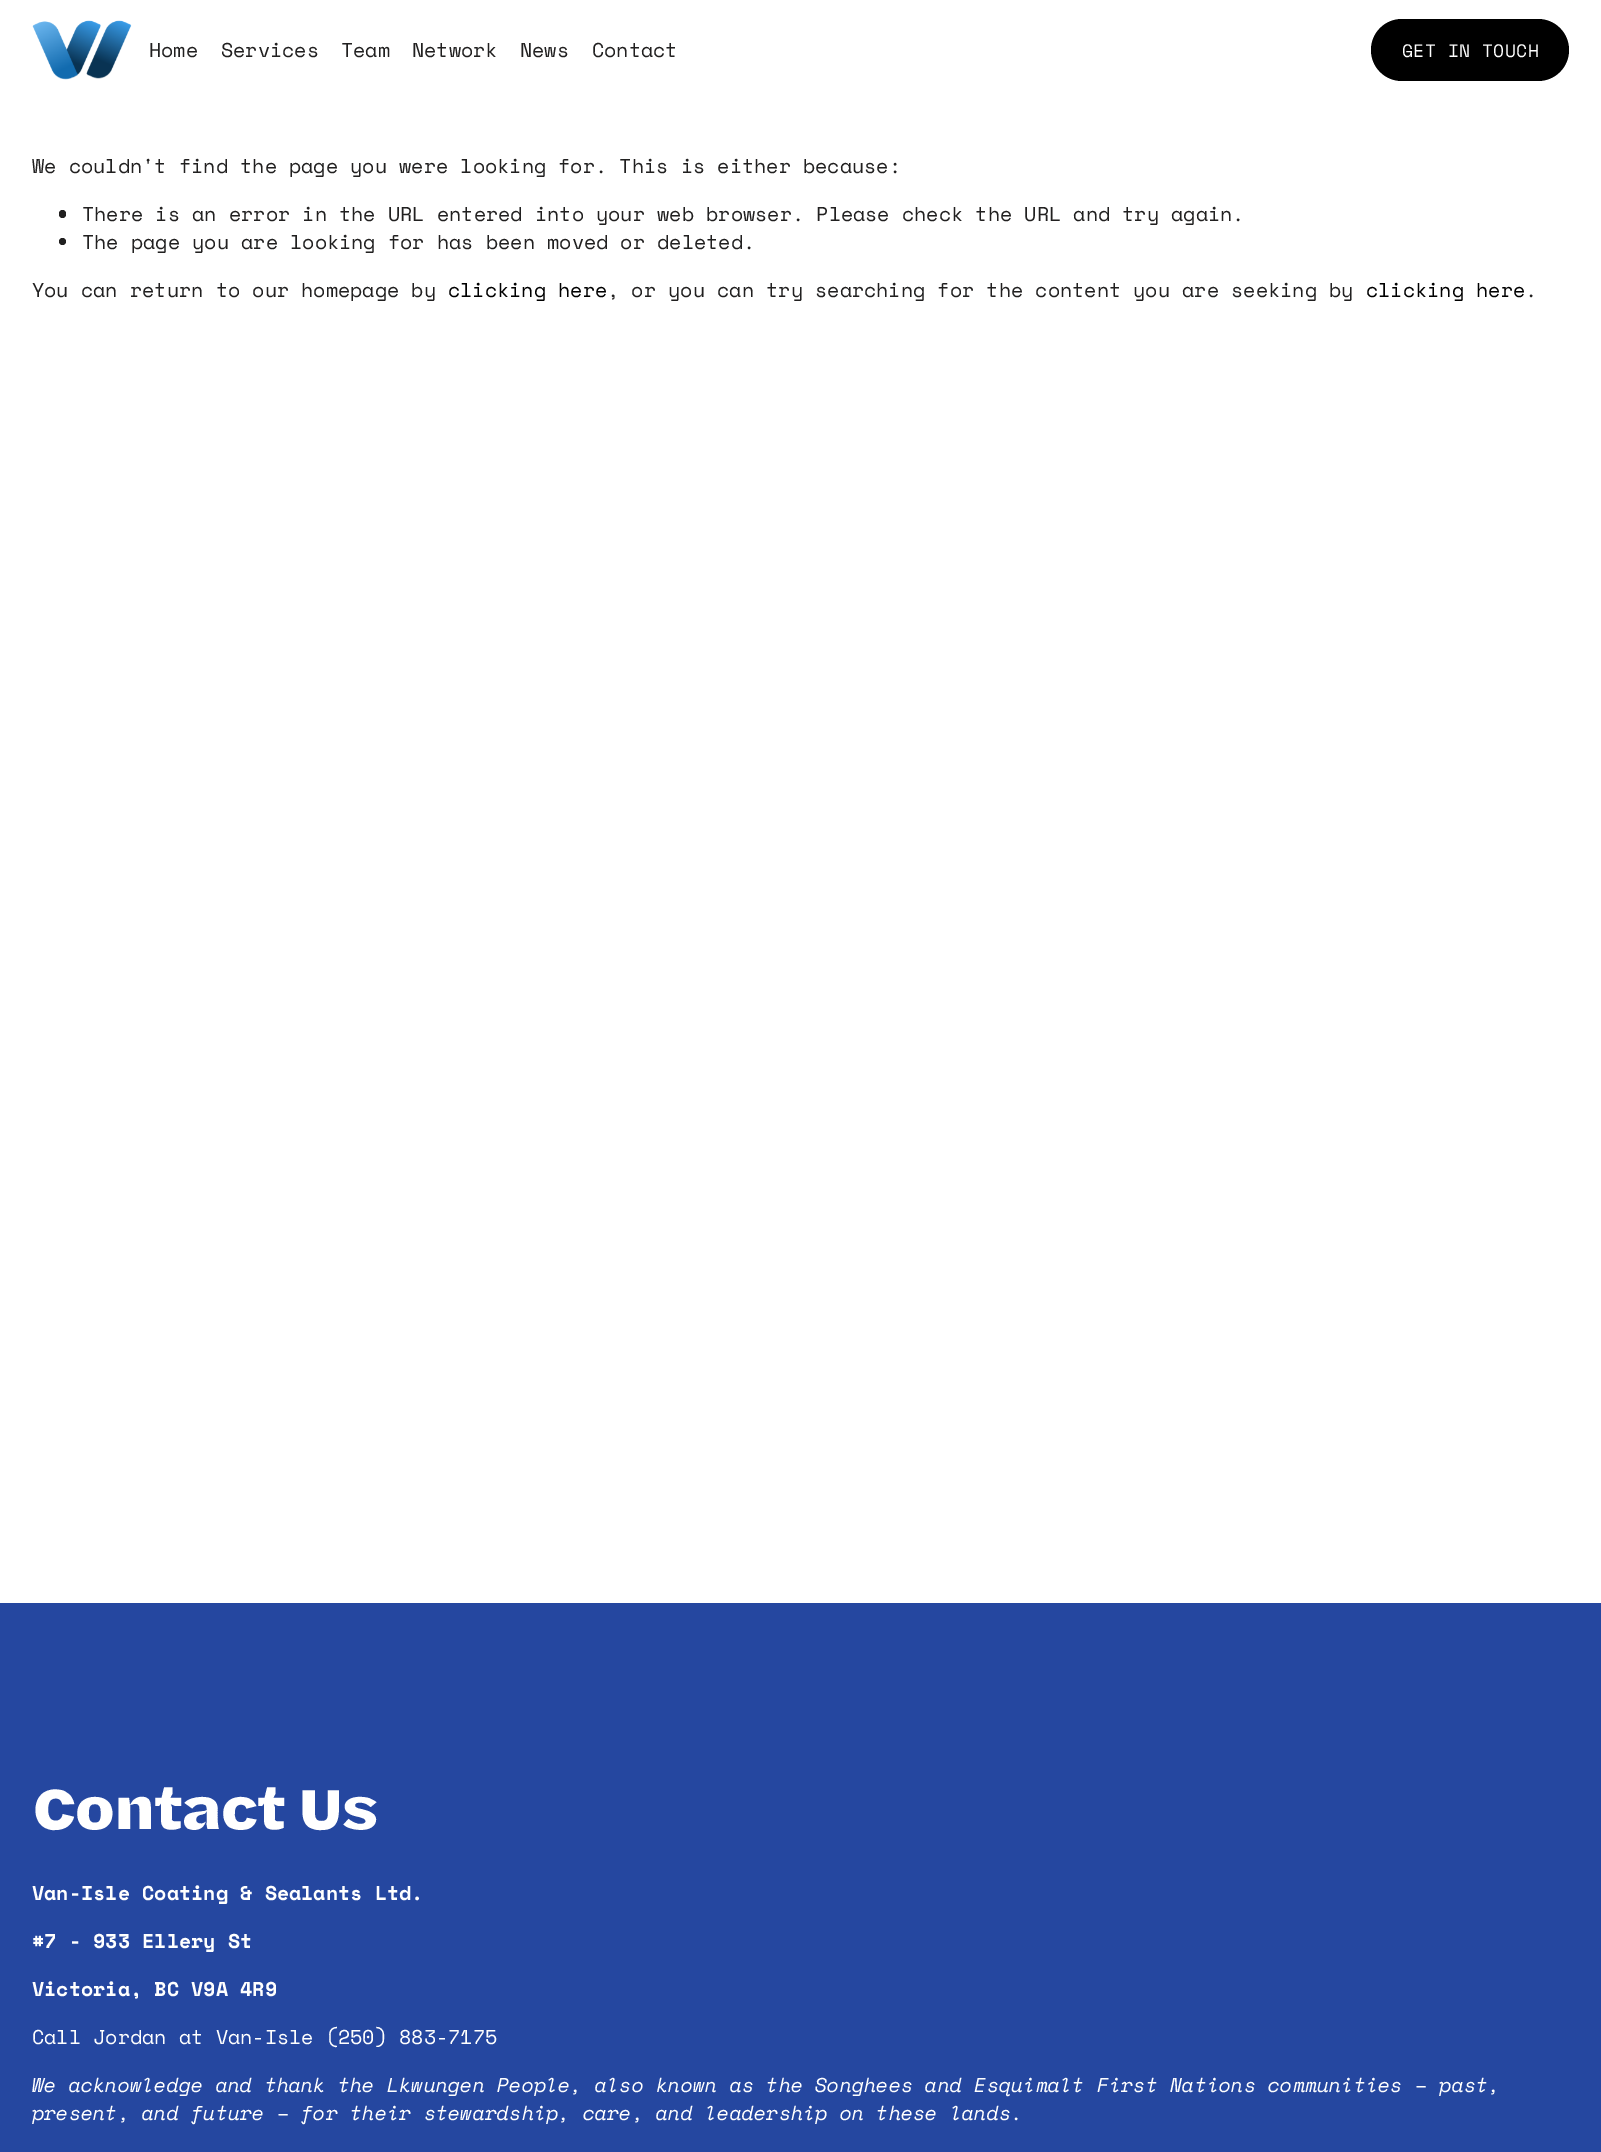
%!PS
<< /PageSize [1601 2152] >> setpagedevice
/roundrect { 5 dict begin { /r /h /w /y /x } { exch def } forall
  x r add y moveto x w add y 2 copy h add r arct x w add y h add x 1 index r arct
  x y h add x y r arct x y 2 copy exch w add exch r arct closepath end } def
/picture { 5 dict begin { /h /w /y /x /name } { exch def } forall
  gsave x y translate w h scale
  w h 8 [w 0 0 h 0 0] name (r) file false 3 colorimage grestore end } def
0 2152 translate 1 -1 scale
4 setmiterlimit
1 setgray
0 0 1601 2152 rectfill
(img1.rgb) 32 20 100 60 picture
/SpaceMono-Regular [20 0 0 -20 0 0] selectfont
0.129 0.125 0.125 setrgbcolor
149 57 moveto (Home) show
221 57 moveto (Services) show
341 57 moveto (Team) show
412 57 moveto (Network) show
520 57 moveto (News) show
592 57 moveto (Contact) show
0 setgray
1371 19 198 62 31 roundrect fill
/SpaceMono-Regular [18 0 0 -18 0 0] selectfont
1 setgray
1402 57 moveto 0.4 0 (GET IN TOUCH) ashow
/SpaceMono-Regular [20 0 0 -20 0 0] selectfont
0.129 0.125 0.125 setrgbcolor
32 173 moveto (We couldn't find the page you were looking for. This is either because:) show
59 210 7 8 3.5 roundrect fill
82 221 moveto (There is an error in the URL entered into your web browser. Please check the URL and try again.) show
newpath 62.5 241.5 3.5 0 360 arc closepath fill
82 249 moveto (The page you are looking for has been moved or deleted.) show
32 297 moveto (You can return to our homepage by) show
0 setgray
448 297 moveto (clicking here) show
0.129 0.125 0.125 setrgbcolor
607 297 moveto (, or you can try searching for the content you are seeking by) show
0 setgray
1366 297 moveto (clicking here) show
0.129 0.125 0.125 setrgbcolor
1525 297 moveto (.) show
0.145 0.278 0.627 setrgbcolor
0 1603 1601 549 rectfill
/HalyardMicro-Bold [58.5 0 0 -58.5 0 0] selectfont
1 setgray
32 1829 moveto -3 0 (Contact Us) ashow
/SpaceMono-Bold [20 0 0 -20 0 0] selectfont
32 1900 moveto (Van-Isle Coating & Sealants Ltd.) show
32 1948 moveto (#7 - 933 Ellery St) show
32 1996 moveto (Victoria, BC V9A 4R9) show
/SpaceMono-Regular [20 0 0 -20 0 0] selectfont
32 2044 moveto (Call Jordan at Van-Isle \(250\) 883-7175) show
/SpaceMono-Italic [20 0 0 -20 0 0] selectfont
32 2092 moveto (We acknowledge and thank the Lkwungen People, also known as the Songhees and Esquimalt First Nations communities – past,) show
32 2120 moveto (present, and future – for their stewardship, care, and leadership on these lands.) show
showpage
